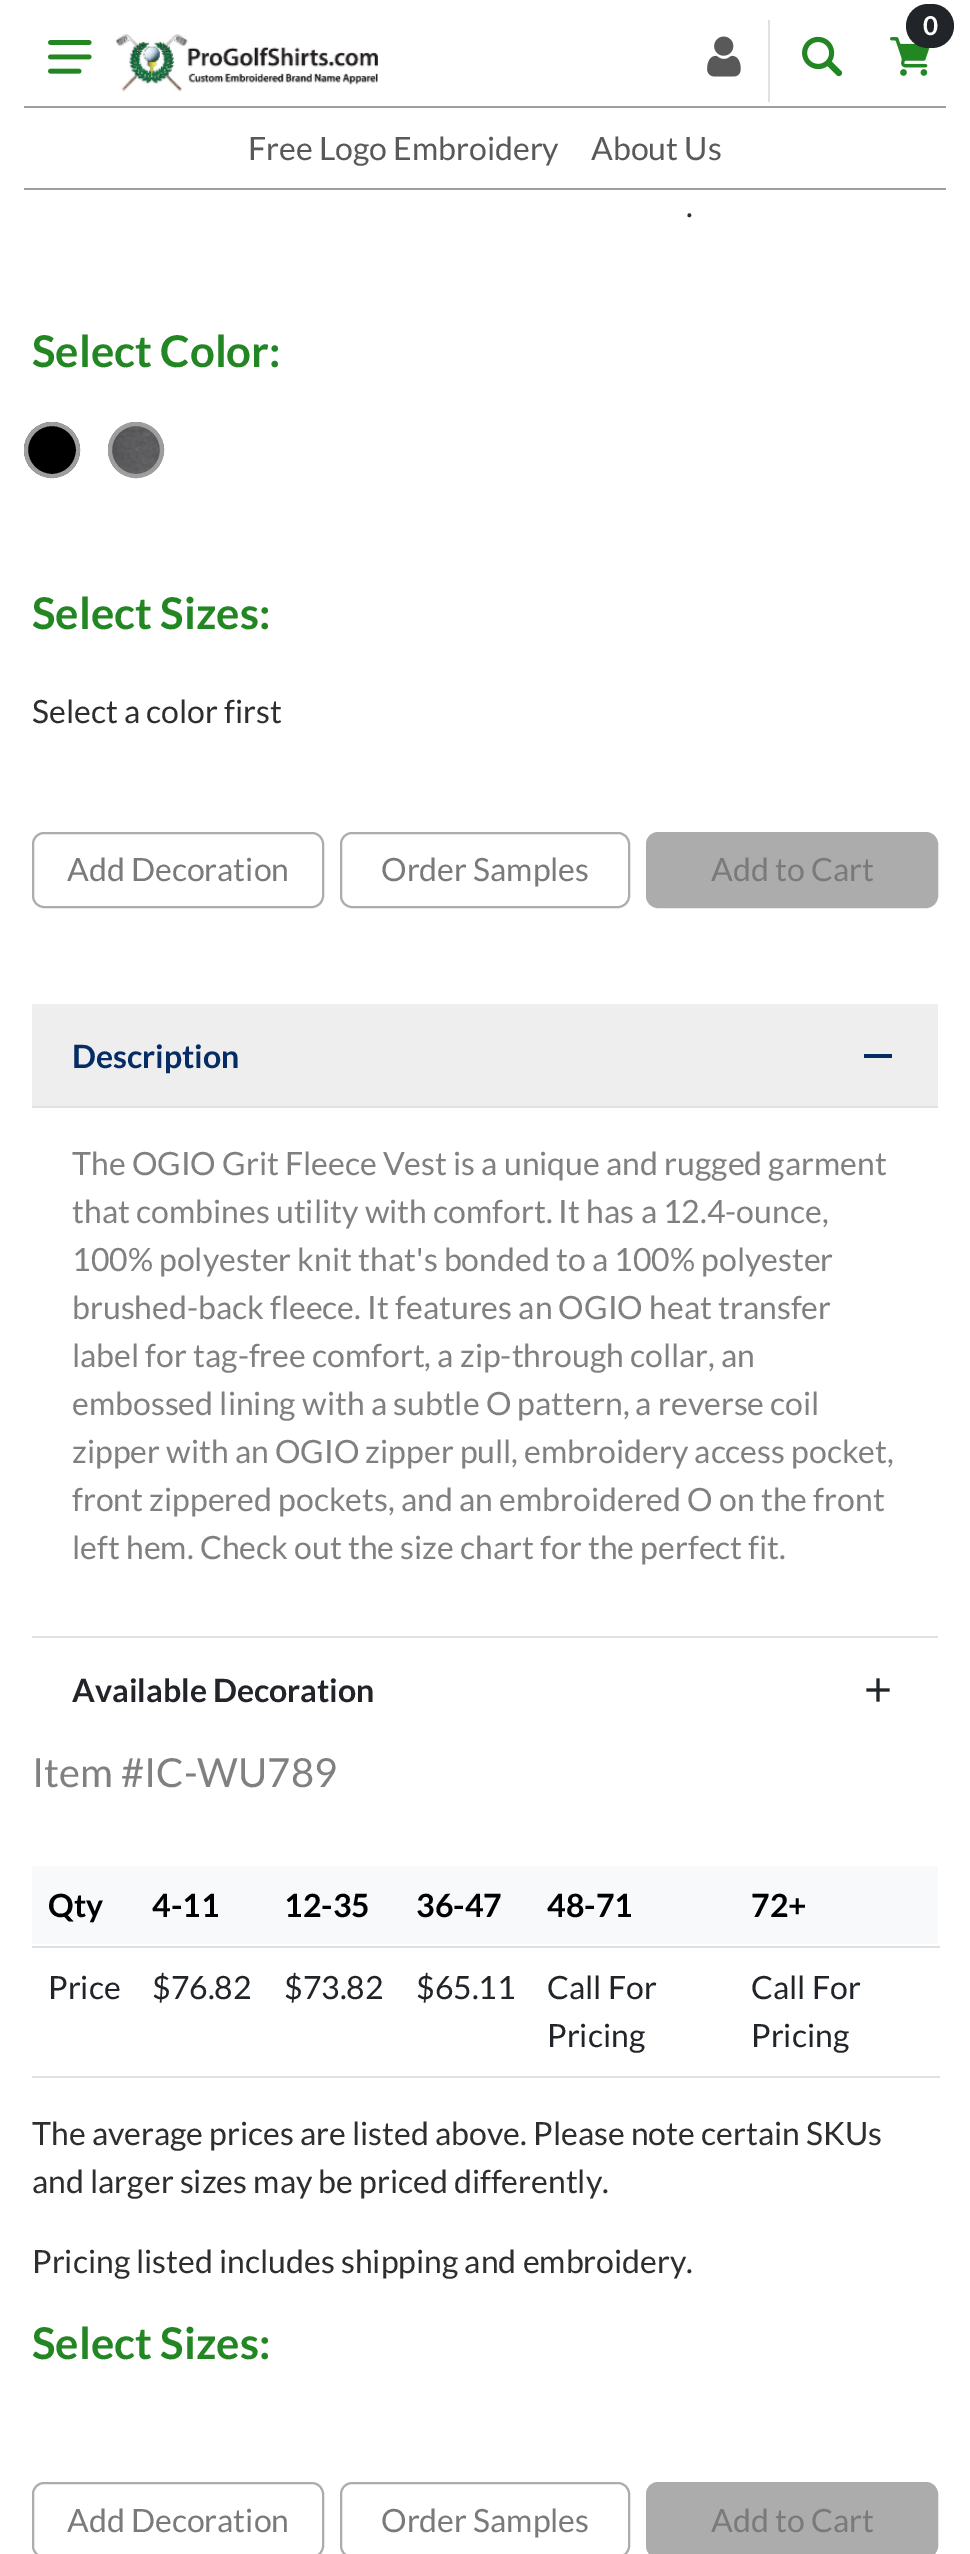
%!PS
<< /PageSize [970 2554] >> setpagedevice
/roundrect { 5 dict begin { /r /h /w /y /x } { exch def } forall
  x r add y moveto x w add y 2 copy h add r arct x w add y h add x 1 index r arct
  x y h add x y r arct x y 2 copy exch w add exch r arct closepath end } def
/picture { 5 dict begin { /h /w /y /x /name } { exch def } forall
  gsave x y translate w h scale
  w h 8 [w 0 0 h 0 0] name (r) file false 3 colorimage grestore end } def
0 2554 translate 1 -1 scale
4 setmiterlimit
1 setgray
0 0 970 2554 rectfill
0.871 0.886 0.902 setrgbcolor
768 20 2 82 rectfill
(img1.rgb) 707 36 34 41 picture
(img2.rgb) 802 36 41 41 picture
(img3.rgb) 890 37 40 39 picture
0.129 0.145 0.161 setrgbcolor
906 4 48 44 22 roundrect fill
/Lato-Bold [26 0 0 -26 0 0] selectfont
1 setgray
923 35 moveto (0) show
(img4.rgb) 48 40 44 34 picture
(img5.rgb) 115 34 263 58 picture
0.62 setgray
24 106 922 2 rectfill
24 188 922 2 rectfill
/Lato-Regular [32 0 0 -32 0 0] selectfont
0.349 setgray
248 160 moveto (Free Logo Embroidery) show
591 160 moveto (About Us) show
0.18 setgray
686 217 moveto (.) show
/Lato-Bold [43.75 0 0 -43.75 0 0] selectfont
0.133 0.525 0.133 setrgbcolor
32 367 moveto (Select Color:) show
(img6.rgb) 24 422 56 56 picture
0.62 setgray
4 setlinewidth
newpath 52 450 26 0 360 arc closepath stroke
(img7.rgb) 108 422 56 56 picture
newpath 136 450 26 0 360 arc closepath stroke
0.133 0.525 0.133 setrgbcolor
32 629 moveto (Select Sizes:) show
/Lato-Regular [32 0 0 -32 0 0] selectfont
0.18 setgray
32 723 moveto (Select a color first) show
0.675 setgray
2 setlinewidth
33 833 290 74 11 roundrect stroke
0.478 setgray
67 881 moveto (Add Decoration) show
0.675 setgray
341 833 288 74 11 roundrect stroke
0.478 setgray
381 881 moveto (Order Samples) show
0.675 setgray
647 833 290 74 11 roundrect gsave fill grestore
stroke
0.478 setgray
711 881 moveto (Add to Cart) show
0.871 0.886 0.902 setrgbcolor
32 1636 906 2 rectfill
0.933 setgray
32 1004 906 102 rectfill
0.871 0.886 0.902 setrgbcolor
32 1106 906 2 rectfill
/Lato-Bold [32 0 0 -32 0 0] selectfont
0.02 0.173 0.396 setrgbcolor
72 1068 moveto (Description) show
864 1054 28 4 rectfill
/Lato-Regular [32 0 0 -32 0 0] selectfont
0.502 setgray
72 1175 moveto (The OGIO Grit Fleece Vest is a unique and rugged garment) show
72 1223 moveto (that combines utility with comfort. It has a 12.4-ounce,) show
72 1271 moveto (100% polyester knit that's bonded to a 100% polyester) show
72 1319 moveto (brushed-back fleece. It features an OGIO heat transfer) show
72 1367 moveto (label for tag-free comfort, a zip-through collar, an) show
72 1415 moveto (embossed lining with a subtle O pattern, a reverse coil) show
72 1463 moveto (zipper with an OGIO zipper pull, embroidery access pocket,) show
72 1511 moveto (front zippered pockets, and an embroidered O on the front) show
72 1559 moveto (left hem. Check out the size chart for the perfect fit.) show
/Lato-Bold [32 0 0 -32 0 0] selectfont
0.129 0.145 0.161 setrgbcolor
72 1702 moveto (Available Decoration) show
(img8.rgb) 866 1678 24 24 picture
/Lato-Regular [40 0 0 -40 0 0] selectfont
0.502 setgray
32 1787 moveto (Item #IC-WU789) show
0.973 0.976 0.98 setrgbcolor
32 1866 906 78 rectfill
/Lato-Bold [32 0 0 -32 0 0] selectfont
0 setgray
48 1917 moveto (Qty) show
152 1917 moveto (4-11) show
284 1917 moveto (12-35) show
416 1917 moveto (36-47) show
547 1917 moveto (48-71) show
0.875 0.878 0.882 setrgbcolor
32 1946 908 2 rectfill
0 setgray
751 1917 moveto (72+) show
/Lato-Regular [32 0 0 -32 0 0] selectfont
0.129 0.145 0.161 setrgbcolor
48 1999 moveto (Price) show
152 1999 moveto ($76.82) show
284 1999 moveto ($73.82) show
416 1999 moveto ($65.11) show
547 1999 moveto (Call For) show
547 2047 moveto (Pricing) show
0.871 0.886 0.902 setrgbcolor
32 2076 908 2 rectfill
0.129 0.145 0.161 setrgbcolor
751 1999 moveto (Call For) show
751 2047 moveto (Pricing) show
0.18 setgray
32 2145 moveto (The average prices are listed above. Please note certain SKUs) show
32 2193 moveto (and larger sizes may be priced differently.) show
32 2273 moveto (Pricing listed includes shipping and embroidery.) show
/Lato-Bold [43.75 0 0 -43.75 0 0] selectfont
0.133 0.525 0.133 setrgbcolor
32 2359 moveto (Select Sizes:) show
0.675 setgray
33 2483 290 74 11 roundrect stroke
/Lato-Regular [32 0 0 -32 0 0] selectfont
0.478 setgray
67 2532 moveto (Add Decoration) show
0.675 setgray
341 2483 288 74 11 roundrect stroke
0.478 setgray
381 2532 moveto (Order Samples) show
0.675 setgray
647 2483 290 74 11 roundrect gsave fill grestore
stroke
0.478 setgray
711 2532 moveto (Add to Cart) show
showpage
